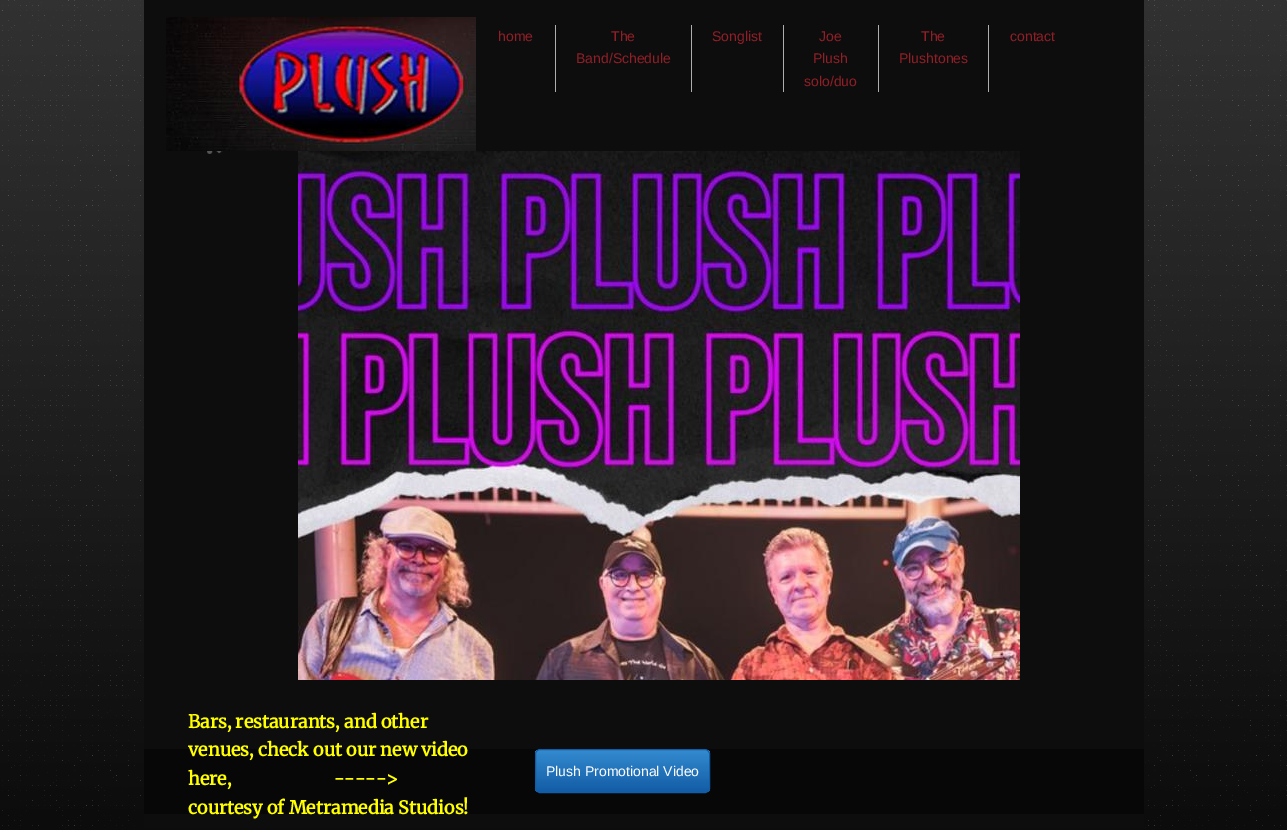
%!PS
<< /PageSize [1287 830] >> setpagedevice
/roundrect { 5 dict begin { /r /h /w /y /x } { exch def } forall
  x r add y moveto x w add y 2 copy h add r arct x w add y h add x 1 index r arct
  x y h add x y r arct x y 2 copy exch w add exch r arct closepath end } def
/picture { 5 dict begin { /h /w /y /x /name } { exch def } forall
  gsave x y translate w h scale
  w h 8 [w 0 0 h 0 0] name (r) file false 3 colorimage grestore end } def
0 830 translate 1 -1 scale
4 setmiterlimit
1 setgray
0 0 1287 830 rectfill
(img1.rgb) 0 0 1287 830 picture
0.051 setgray
144 0 1000 828 rectfill
(img2.rgb) 166 17 310 134 picture
0.682 setgray
555 25 1 67 rectfill
/LiberationSans-Regular [14 0 0 -14 0 0] selectfont
0.565 0.122 0.157 setrgbcolor
498 41 moveto (home) show
0.682 setgray
691 25 1 67 rectfill
0.565 0.122 0.157 setrgbcolor
611 41 moveto (The) show
576 63 moveto (Band/Schedule) show
0.682 setgray
783 25 1 67 rectfill
0.565 0.122 0.157 setrgbcolor
712 41 moveto (Songlist) show
0.682 setgray
878 25 1 67 rectfill
0.565 0.122 0.157 setrgbcolor
819 41 moveto (Joe) show
813 63 moveto (Plush) show
804 86 moveto (solo/duo) show
0.682 setgray
988 25 1 67 rectfill
0.565 0.122 0.157 setrgbcolor
921 41 moveto (The) show
899 63 moveto (Plushtones) show
1010 41 moveto (contact) show
(img3.rgb) 207 151 16 3 picture
(img4.rgb) 298 151 722 529 picture
/Merriweather-Bold [18 0 0 -18 0 0] selectfont
1 1 0 setrgbcolor
188 728 moveto (Bars, restaurants, and other) show
0.027 setgray
144 749 1000 65 rectfill
1 1 0 setrgbcolor
188 756 moveto (venues, check out our new video) show
188 785 moveto (here,                        ----->) show
188 814 moveto (courtesy of Metramedia Studios!) show
gsave
535 749 175 44 5 roundrect clip newpath
gsave newpath 535 750 moveto 710 750 lineto 710 792 lineto 535 792 lineto closepath clip newpath
<< /ShadingType 2 /ColorSpace /DeviceRGB /Coords [623 750 623 792] /Extend [true true] /Function << /FunctionType 2 /Domain [0 1] /C0 [0.204 0.545 0.812] /C1 [0.071 0.361 0.651] /N 1 >> >> shfill grestore
grestore
0.071 0.361 0.651 setrgbcolor
535.5 749.5 174 43 4.5 roundrect stroke
/LiberationSans-Regular [14 0 0 -14 0 0] selectfont
1 setgray
546 776 moveto (Plush Promotional Video) show
showpage
